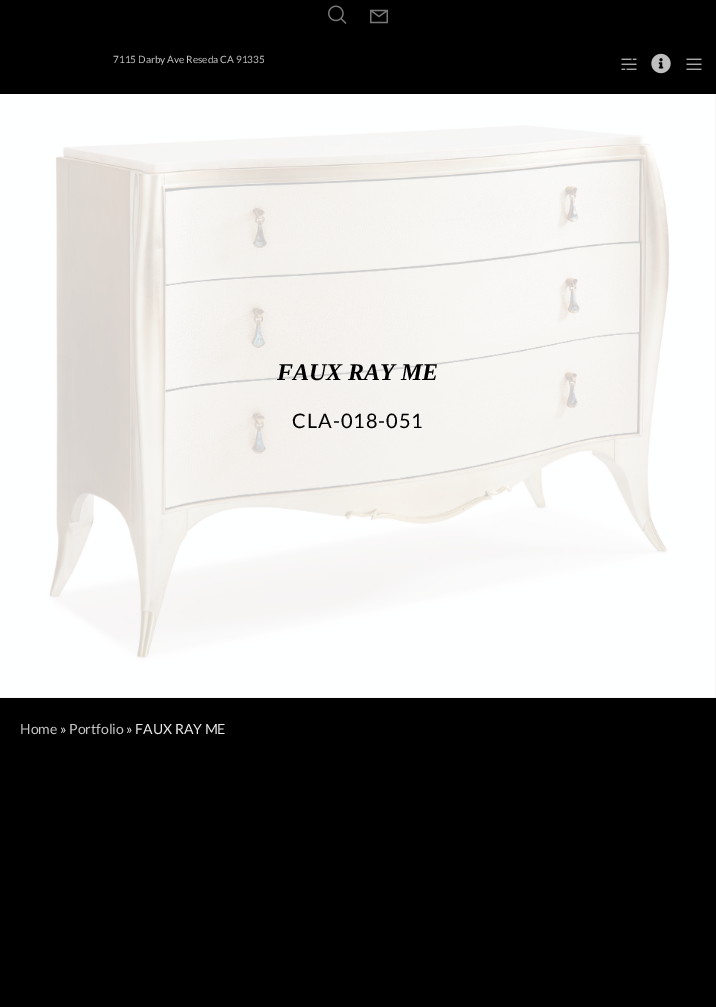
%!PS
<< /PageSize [716 1007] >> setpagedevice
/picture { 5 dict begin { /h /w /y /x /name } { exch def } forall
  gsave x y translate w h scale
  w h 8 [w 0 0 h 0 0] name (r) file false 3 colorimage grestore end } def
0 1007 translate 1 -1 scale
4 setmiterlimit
0 setgray
0 0 716 1007 rectfill
(img1.rgb) 328 5 19 19 picture
(img2.rgb) 370 9 18 15 picture
/Lato-Regular [10 0 0 -10 0 0] selectfont
0.776 setgray
113 63 moveto (7115 Darby Ave Reseda CA 91335) show
(img3.rgb) 621 58 16 12 picture
(img4.rgb) 651 53 20 21 picture
(img5.rgb) 686 58 16 12 picture
(img6.rgb) 0 94 716 604 picture
/LiberationSerif-BoldItalic [24 0 0 -24 0 0] selectfont
0 setgray
277 380 moveto (FAUX RAY ME) show
/Lato-Regular [20 0 0 -20 0 0] selectfont
292 428 moveto 1 0 (CLA-018-051) ashow
/Lato-Regular [14 0 0 -14 0 0] selectfont
0.776 setgray
20 734 moveto (Home) show
0.918 setgray
60 734 moveto (») show
0.776 setgray
69 734 moveto (Portfolio) show
0.918 setgray
126 734 moveto (» FAUX RAY ME) show
showpage
